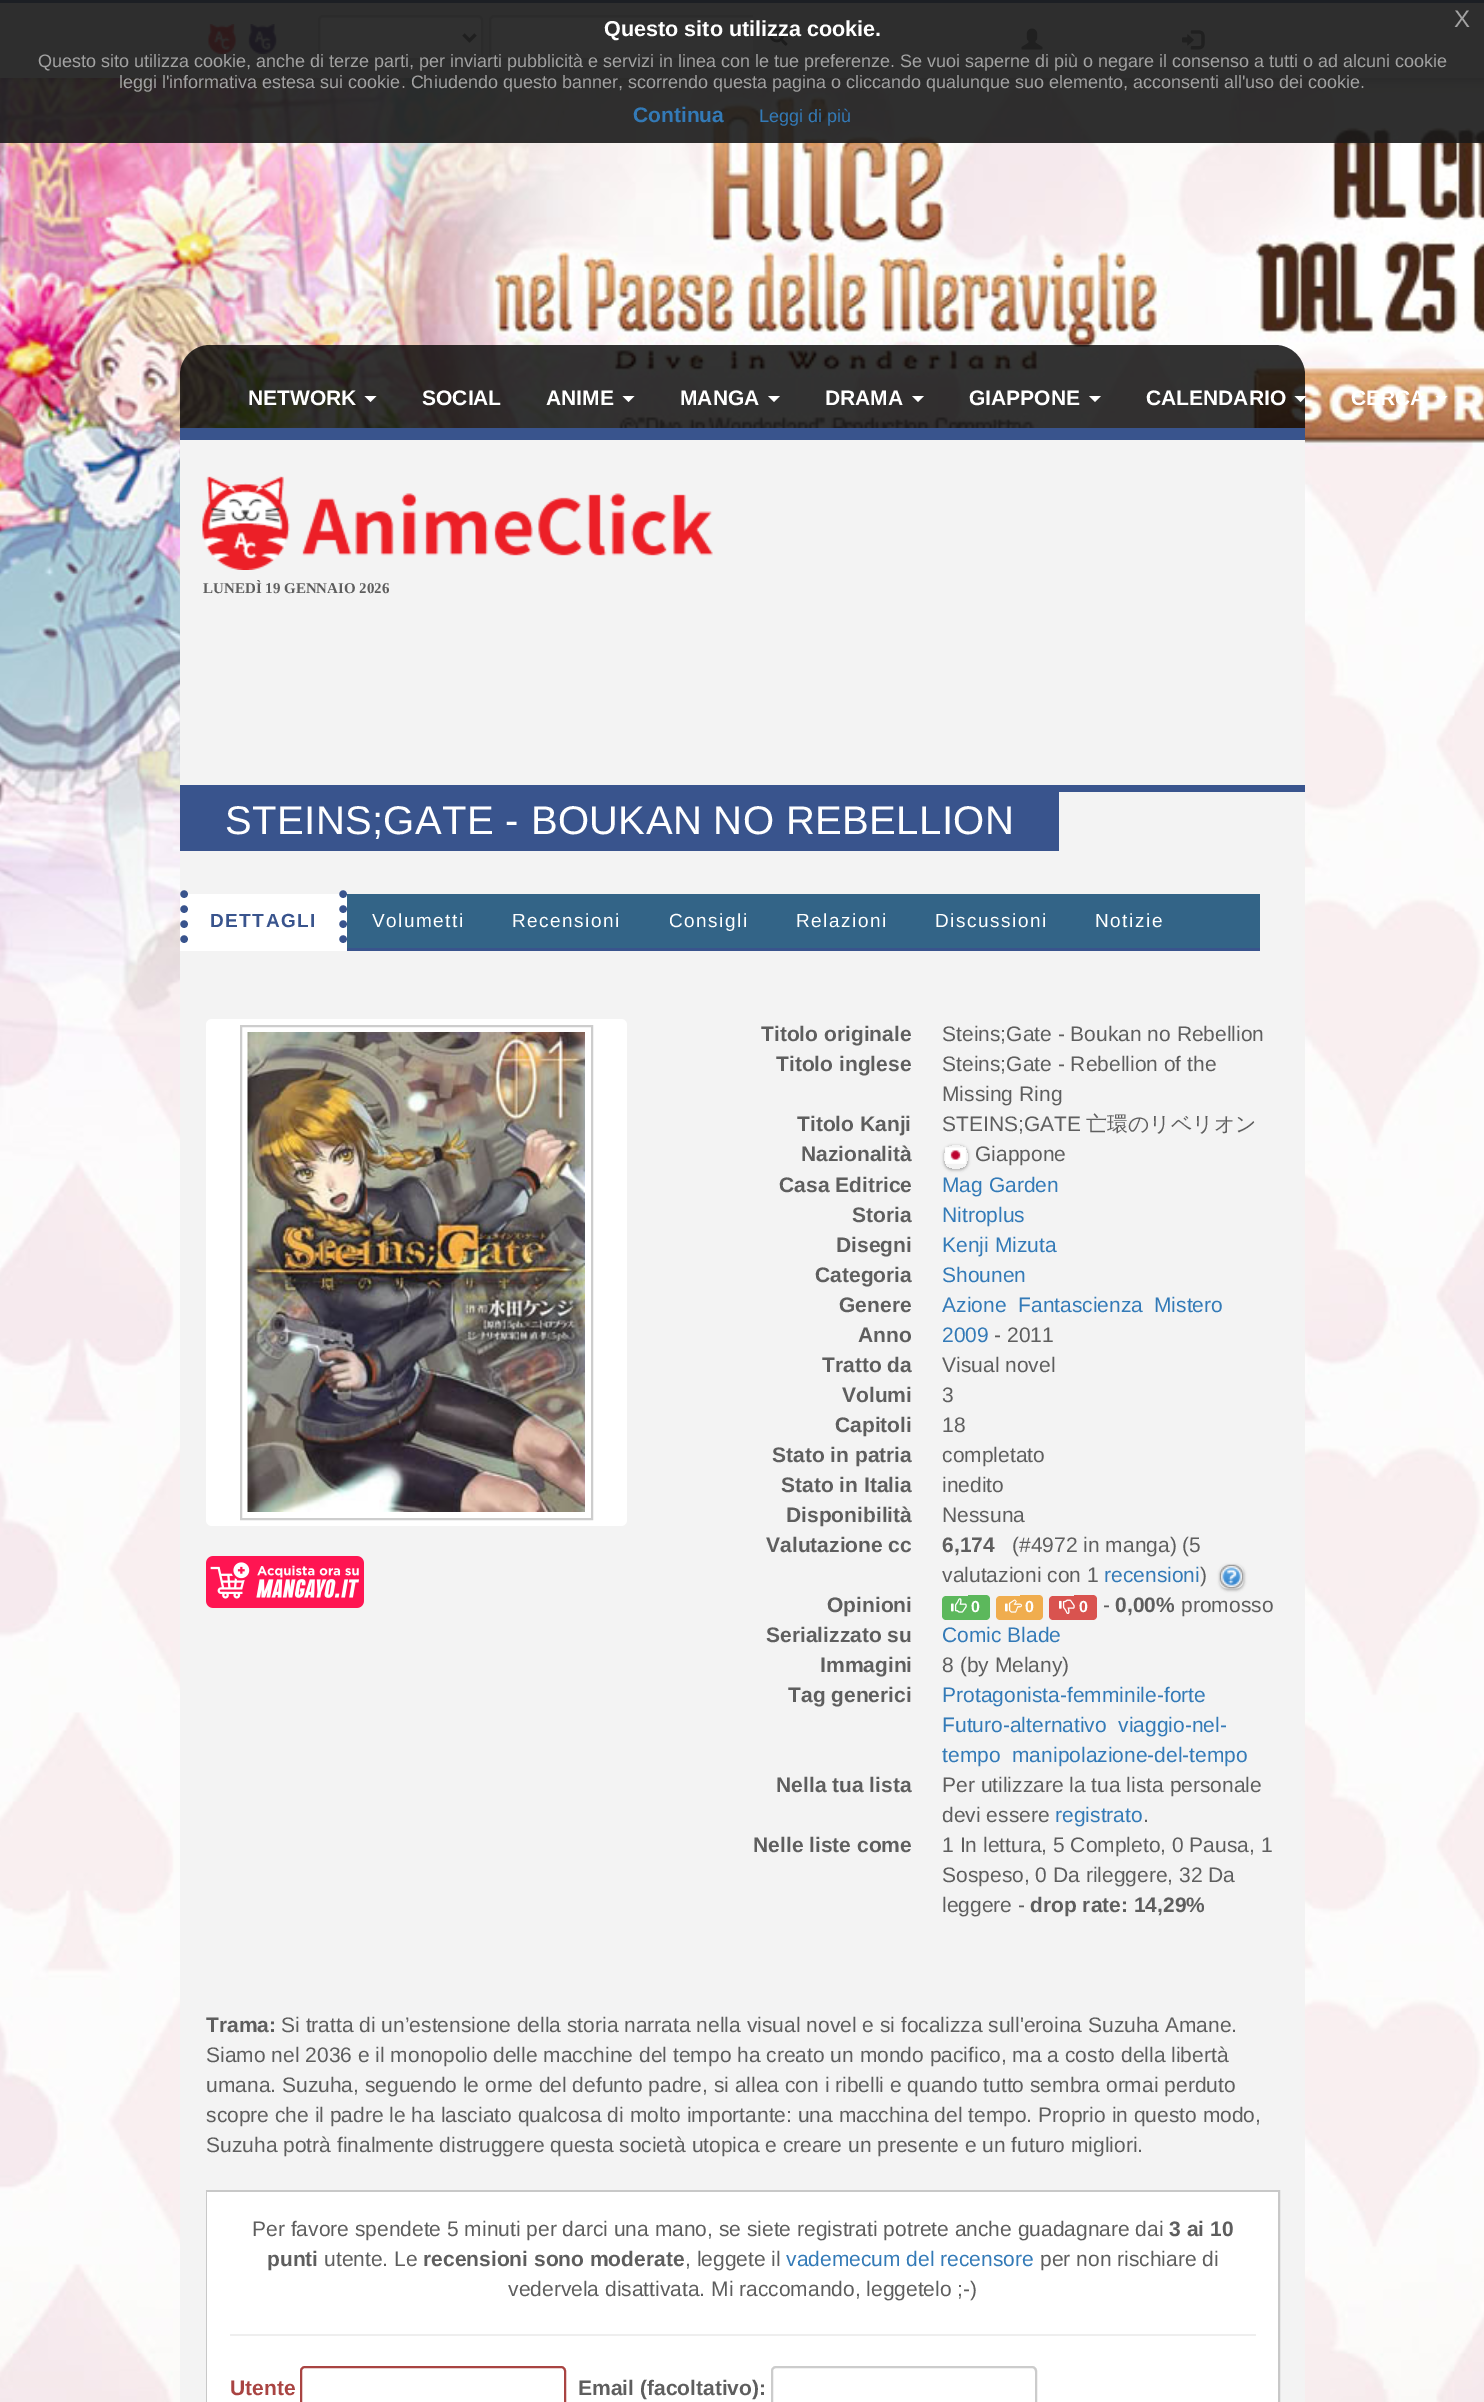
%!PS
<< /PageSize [1484 2402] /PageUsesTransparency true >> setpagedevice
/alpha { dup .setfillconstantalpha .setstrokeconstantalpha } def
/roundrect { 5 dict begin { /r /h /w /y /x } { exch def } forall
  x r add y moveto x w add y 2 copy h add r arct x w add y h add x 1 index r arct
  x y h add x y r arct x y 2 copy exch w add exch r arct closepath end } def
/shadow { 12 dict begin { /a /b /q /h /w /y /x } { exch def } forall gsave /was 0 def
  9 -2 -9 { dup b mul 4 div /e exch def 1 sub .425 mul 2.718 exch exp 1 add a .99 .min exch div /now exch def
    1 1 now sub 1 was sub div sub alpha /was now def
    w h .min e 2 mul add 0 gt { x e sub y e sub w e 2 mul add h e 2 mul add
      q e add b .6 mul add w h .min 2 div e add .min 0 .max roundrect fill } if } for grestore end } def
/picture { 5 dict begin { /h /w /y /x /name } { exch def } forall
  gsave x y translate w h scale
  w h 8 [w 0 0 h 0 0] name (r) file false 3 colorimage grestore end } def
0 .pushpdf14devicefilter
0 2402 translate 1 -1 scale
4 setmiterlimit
1 setgray
0 0 1484 2402 rectfill
(img1.rgb) 0 78 1484 2324 picture
0 setgray
0 3 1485 78 0 4 0.2 shadow
0.953 setgray
0 3 1484 75 rectfill
0.224 0.329 0.553 setrgbcolor
0 0 1484 3 rectfill
(img2.rgb) 207 24 30 30 picture
(img3.rgb) 247 24 31 30 picture
1 setgray
318 15 165 45 5 roundrect fill
0.925 setgray
newpath 322 18 moveto 478 18 lineto 480 18 482 19 482 21 curveto 482 19 481 17 479 17 curveto 322 17 lineto 320 17 320 19 320 21 curveto 320 19 321 18 322 18 curveto closepath fill
0.8 setgray
2 setlinewidth
319 16 163 43 4 roundrect stroke
0.333 setgray
3 setlinewidth
newpath 463.5 34.5 moveto 469.5 40.5 lineto 475.5 34.5 lineto stroke
1 setgray
newpath 494 15 moveto 755 15 lineto 755 60 lineto 494 60 lineto 491 60 489 58 489 55 curveto 489 20 lineto 489 17 491 15 494 15 curveto closepath fill
0.925 setgray
newpath 494 18 moveto 753 18 lineto 753 17 lineto 494 17 lineto 493 17 492 18 491 19 curveto closepath fill
0.8 setgray
2 setlinewidth
newpath 494 16 moveto 754 16 lineto 754 59 lineto 494 59 lineto 492 59 490 57 490 55 curveto 490 20 lineto 490 18 492 16 494 16 curveto closepath stroke
0.937 setgray
newpath 753 15 moveto 799 15 lineto 802 15 804 17 804 20 curveto 804 55 lineto 804 58 802 60 799 60 curveto 753 60 lineto closepath fill
(img4.rgb) 769 27 19 19 picture
(img5.rgb) 1021 28 22 22 picture
(img6.rgb) 1182 30 23 20 picture
0.9 alpha
0.098 setgray
0 0 1484 143 rectfill
/LiberationSans-Bold [21.6 0 0 -21.6 0 0] selectfont
1 alpha
1 setgray
604 36 moveto (Questo sito utilizza cookie.) show
/LiberationSans-Regular [24 0 0 -24 0 0] selectfont
0.635 setgray
1454 27 moveto (X) show
/LiberationSans-Regular [18 0 0 -18 0 0] selectfont
38 67 moveto (Questo sito utilizza cookie, anche di terze parti, per inviarti pubblicità e servizi in linea con le tue preferenze. Se vuoi saperne di più o negare il consenso a tutti o ad alcuni cookie) show
119 88 moveto (leggi l'informativa estesa sui cookie. Chiudendo questo banner, scorrendo questa pagina o cliccando qualunque suo elemento, acconsenti all'uso dei cookie.) show
/LiberationSans-Bold [21 0 0 -21 0 0] selectfont
0.2 0.478 0.718 setrgbcolor
633 122 moveto (Continua) show
/LiberationSans-Regular [18 0 0 -18 0 0] selectfont
759 122 moveto (Leggi di più) show
0.8 alpha
0 setgray
newpath 210 345 moveto 1275 345 lineto 1291.5 345 1305 358.5 1305 375 curveto 1305 440 lineto 180 440 lineto 180 375 lineto 180 358.5 193.5 345 210 345 curveto closepath fill
1 alpha
0.224 0.329 0.553 setrgbcolor
180 428 1125 12 rectfill
/LiberationSans-Bold [21 0 0 -21 0 0] selectfont
1 setgray
248 405 moveto (NETWORK) show
newpath 364.5 396 moveto 376.5 396 lineto 370.5 402 lineto closepath fill
422 405 moveto (SOCIAL) show
546 405 moveto (ANIME) show
newpath 622.5 396 moveto 634.5 396 lineto 628.5 402 lineto closepath fill
680 405 moveto (MANGA) show
newpath 768 396 moveto 780 396 lineto 774 402 lineto closepath fill
825 405 moveto (DRAMA) show
newpath 912 396 moveto 924 396 lineto 918 402 lineto closepath fill
969 405 moveto (GIAPPONE) show
newpath 1089 396 moveto 1101 396 lineto 1095 402 lineto closepath fill
1146 405 moveto (CALENDARIO) show
newpath 1294.5 396 moveto 1306.5 396 lineto 1300.5 402 lineto closepath fill
1351 405 moveto (CERCA) show
newpath 1435.5 396 moveto 1447.5 396 lineto 1441.5 402 lineto closepath fill
0.953 setgray
180 440 1125 1962 rectfill
(img7.rgb) 202 476 511 94 picture
/LiberationSerif-Bold [15 0 0 -15 0 0] selectfont
0.369 setgray
203 593 moveto (LUNEDÌ 19 GENNAIO 2026) show
0.224 0.329 0.553 setrgbcolor
180 785 1125 7 rectfill
180 792 879 59 rectfill
/LiberationSans-Regular [40 0 0 -40 0 0] selectfont
1 setgray
225 834 moveto 0.4 0 (STEINS;GATE - BOUKAN NO REBELLION) ashow
0.2 0.392 0.529 setrgbcolor
347 894 913 54 rectfill
0.224 0.329 0.553 setrgbcolor
347 948 913 3 rectfill
1 setgray
180 894 167 57 rectfill
0.224 0.329 0.553 setrgbcolor
7.5 setlinewidth
1 setlinecap
[0 15] 0 setdash
newpath 343 894 moveto 343 951 lineto stroke
newpath 184 894 moveto 184 951 lineto stroke
/LiberationSans-Bold [19 0 0 -19 0 0] selectfont
210 927 moveto 1.5 0 (DETTAGLI) ashow
/LiberationSans-Regular [19 0 0 -19 0 0] selectfont
1 setgray
372 927 moveto 1.5 0 (Volumetti) ashow
512 927 moveto 1.5 0 (Recensioni) ashow
669 927 moveto 1.5 0 (Consigli) ashow
796 927 moveto 1.5 0 (Relazioni) ashow
935 927 moveto 1.5 0 (Discussioni) ashow
1095 927 moveto 1.5 0 (Notizie) ashow
206 1019 421 507 6 roundrect fill
0.804 setgray
2 setlinewidth
0 setlinecap
[] 0 setdash
241 1026 351 493 rectstroke
(img8.rgb) 247 1032 338 480 picture
(img9.rgb) 206 1556 158 52 picture
/LiberationSans-Bold [21 0 0 -21 0 0] selectfont
0.369 setgray
761 1041 moveto (Titolo originale) show
/LiberationSans-Regular [21 0 0 -21 0 0] selectfont
942 1041 moveto (Steins;Gate - Boukan no Rebellion) show
/LiberationSans-Bold [21 0 0 -21 0 0] selectfont
776 1071 moveto (Titolo inglese) show
/LiberationSans-Regular [21 0 0 -21 0 0] selectfont
942 1071 moveto (Steins;Gate - Rebellion of the) show
942 1101 moveto (Missing Ring) show
/LiberationSans-Bold [21 0 0 -21 0 0] selectfont
797 1131 moveto (Titolo Kanji) show
/LiberationSans-Regular [21 0 0 -21 0 0] selectfont
942 1131 moveto (STEINS;GATE) show
/WenQuanYiZenHei-Medium [21 0 0 -21 0 0] selectfont
1086 1131 moveto (亡環のリベリオン) show
/LiberationSans-Bold [21 0 0 -21 0 0] selectfont
801 1161 moveto (Nazionalità) show
gsave
newpath 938 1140 moveto 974 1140 lineto 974 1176 lineto 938 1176 lineto closepath 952 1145 moveto 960 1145 lineto 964.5 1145 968 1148.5 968 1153 curveto 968 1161 lineto 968 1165.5 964.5 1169 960 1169 curveto 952 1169 lineto 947.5 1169 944 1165.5 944 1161 curveto 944 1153 lineto 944 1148.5 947.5 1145 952 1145 curveto closepath eoclip newpath
0 setgray
944 1146 24 24 8 1.5 0.3 shadow
grestore
/LiberationSans-Regular [21 0 0 -21 0 0] selectfont
975 1161 moveto (Giappone) show
(img10.rgb) 945 1147 21 17 picture
/LiberationSans-Bold [21 0 0 -21 0 0] selectfont
779 1192 moveto (Casa Editrice) show
/LiberationSans-Regular [21 0 0 -21 0 0] selectfont
0.2 0.478 0.718 setrgbcolor
942 1192 moveto (Mag Garden) show
/LiberationSans-Bold [21 0 0 -21 0 0] selectfont
0.369 setgray
852 1222 moveto (Storia) show
/LiberationSans-Regular [21 0 0 -21 0 0] selectfont
0.2 0.478 0.718 setrgbcolor
942 1222 moveto (Nitroplus) show
/LiberationSans-Bold [21 0 0 -21 0 0] selectfont
0.369 setgray
836 1252 moveto (Disegni) show
/LiberationSans-Regular [21 0 0 -21 0 0] selectfont
0.2 0.478 0.718 setrgbcolor
942 1252 moveto (Kenji Mizuta) show
/LiberationSans-Bold [21 0 0 -21 0 0] selectfont
0.369 setgray
815 1282 moveto (Categoria) show
/LiberationSans-Regular [21 0 0 -21 0 0] selectfont
0.2 0.478 0.718 setrgbcolor
942 1282 moveto (Shounen) show
/LiberationSans-Bold [21 0 0 -21 0 0] selectfont
0.369 setgray
839 1312 moveto (Genere) show
/LiberationSans-Regular [21 0 0 -21 0 0] selectfont
0.2 0.478 0.718 setrgbcolor
942 1312 moveto (Azione) show
1018 1312 moveto (Fantascienza) show
1154 1312 moveto (Mistero) show
/LiberationSans-Bold [21 0 0 -21 0 0] selectfont
0.369 setgray
858 1342 moveto (Anno) show
/LiberationSans-Regular [21 0 0 -21 0 0] selectfont
0.2 0.478 0.718 setrgbcolor
942 1342 moveto (2009) show
0.369 setgray
994 1342 moveto (- 2011) show
/LiberationSans-Bold [21 0 0 -21 0 0] selectfont
822 1372 moveto (Tratto da) show
/LiberationSans-Regular [21 0 0 -21 0 0] selectfont
942 1372 moveto (Visual novel) show
/LiberationSans-Bold [21 0 0 -21 0 0] selectfont
842 1402 moveto (Volumi) show
/LiberationSans-Regular [21 0 0 -21 0 0] selectfont
942 1402 moveto (3) show
/LiberationSans-Bold [21 0 0 -21 0 0] selectfont
835 1432 moveto (Capitoli) show
/LiberationSans-Regular [21 0 0 -21 0 0] selectfont
942 1432 moveto (18) show
/LiberationSans-Bold [21 0 0 -21 0 0] selectfont
772 1462 moveto (Stato in patria) show
/LiberationSans-Regular [21 0 0 -21 0 0] selectfont
942 1462 moveto (completato) show
/LiberationSans-Bold [21 0 0 -21 0 0] selectfont
781 1492 moveto (Stato in Italia) show
/LiberationSans-Regular [21 0 0 -21 0 0] selectfont
942 1492 moveto (inedito) show
/LiberationSans-Bold [21 0 0 -21 0 0] selectfont
786 1522 moveto (Disponibilità) show
/LiberationSans-Regular [21 0 0 -21 0 0] selectfont
942 1522 moveto (Nessuna) show
/LiberationSans-Bold [21 0 0 -21 0 0] selectfont
766 1552 moveto (Valutazione cc) show
942 1552 moveto (6,174) show
/LiberationSans-Regular [21 0 0 -21 0 0] selectfont
1012 1552 moveto (\(#4972 in manga\) \(5) show
942 1582 moveto (valutazioni con 1) show
0.2 0.478 0.718 setrgbcolor
1104 1582 moveto (recensioni) show
0.369 setgray
1200 1582 moveto (\)) show
gsave
newpath 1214 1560 moveto 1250 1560 lineto 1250 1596 lineto 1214 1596 lineto closepath 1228 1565 moveto 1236 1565 lineto 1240.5 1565 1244 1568.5 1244 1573 curveto 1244 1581 lineto 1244 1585.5 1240.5 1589 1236 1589 curveto 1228 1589 lineto 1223.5 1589 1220 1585.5 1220 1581 curveto 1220 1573 lineto 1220 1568.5 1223.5 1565 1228 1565 curveto closepath eoclip newpath
0 setgray
1220 1566 24 24 8 1.5 0.3 shadow
grestore
(img11.rgb) 1219 1564 25 25 picture
/LiberationSans-Bold [21 0 0 -21 0 0] selectfont
827 1612 moveto (Opinioni) show
0.361 0.722 0.361 setrgbcolor
newpath 946 1596 moveto 968 1596 lineto 968 1620 lineto 946 1620 lineto 944 1620 942 1618 942 1616 curveto 942 1600 lineto 942 1598 944 1596 946 1596 curveto closepath fill
newpath 968 1595 moveto 986 1595 lineto 988 1595 990 1597 990 1599 curveto 990 1616 lineto 990 1618 988 1620 986 1620 curveto 968 1620 lineto closepath fill
(img12.rgb) 951 1598 16 15 picture
/LiberationSans-Bold [16 0 0 -16 0 0] selectfont
1 setgray
971 1612 moveto (0) show
0.941 0.678 0.306 setrgbcolor
newpath 1000 1596 moveto 1020 1596 lineto 1020 1620 lineto 1000 1620 lineto 998 1620 996 1618 996 1616 curveto 996 1600 lineto 996 1598 998 1596 1000 1596 curveto closepath fill
newpath 1020 1595 moveto 1039 1595 lineto 1041 1595 1043 1597 1043 1599 curveto 1043 1616 lineto 1043 1618 1041 1620 1039 1620 curveto 1020 1620 lineto closepath fill
(img13.rgb) 1005 1599 17 14 picture
1 setgray
1025 1612 moveto (0) show
0.851 0.325 0.31 setrgbcolor
newpath 1053 1596 moveto 1074 1596 lineto 1074 1620 lineto 1053 1620 lineto 1051 1620 1049 1618 1049 1616 curveto 1049 1600 lineto 1049 1598 1051 1596 1053 1596 curveto closepath fill
newpath 1074 1595 moveto 1093 1595 lineto 1095 1595 1097 1597 1097 1599 curveto 1097 1616 lineto 1097 1618 1095 1620 1093 1620 curveto 1074 1620 lineto closepath fill
(img14.rgb) 1059 1599 16 15 picture
1 setgray
1079 1612 moveto (0) show
/LiberationSans-Regular [21 0 0 -21 0 0] selectfont
0.369 setgray
1103 1612 moveto (-) show
/LiberationSans-Bold [21 0 0 -21 0 0] selectfont
1115 1612 moveto (0,00%) show
/LiberationSans-Regular [21 0 0 -21 0 0] selectfont
1181 1612 moveto (promosso) show
/LiberationSans-Bold [21 0 0 -21 0 0] selectfont
766 1642 moveto (Serializzato su) show
/LiberationSans-Regular [21 0 0 -21 0 0] selectfont
0.2 0.478 0.718 setrgbcolor
942 1642 moveto (Comic Blade) show
/LiberationSans-Bold [21 0 0 -21 0 0] selectfont
0.369 setgray
820 1672 moveto (Immagini) show
/LiberationSans-Regular [21 0 0 -21 0 0] selectfont
942 1672 moveto (8 \(by Melany\)) show
/LiberationSans-Bold [21 0 0 -21 0 0] selectfont
788 1702 moveto (Tag generici) show
/LiberationSans-Regular [21 0 0 -21 0 0] selectfont
0.2 0.478 0.718 setrgbcolor
942 1702 moveto (Protagonista-femminile-forte) show
942 1732 moveto (Futuro-alternativo) show
1118 1732 moveto (viaggio-nel-) show
942 1762 moveto (tempo) show
1012 1762 moveto (manipolazione-del-tempo) show
/LiberationSans-Bold [21 0 0 -21 0 0] selectfont
0.369 setgray
776 1792 moveto (Nella tua lista) show
/LiberationSans-Regular [21 0 0 -21 0 0] selectfont
942 1792 moveto (Per utilizzare la tua lista personale) show
942 1822 moveto (devi essere) show
0.2 0.478 0.718 setrgbcolor
1055 1822 moveto (registrato) show
0.369 setgray
1143 1822 moveto (.) show
/LiberationSans-Bold [21 0 0 -21 0 0] selectfont
753 1852 moveto (Nelle liste come) show
/LiberationSans-Regular [21 0 0 -21 0 0] selectfont
942 1852 moveto (1 In lettura, 5 Completo, 0 Pausa, 1) show
942 1882 moveto (Sospeso, 0 Da rileggere, 32 Da) show
942 1912 moveto (leggere -) show
/LiberationSans-Bold [21 0 0 -21 0 0] selectfont
1030 1912 moveto (drop rate: 14,29%) show
206 2032 moveto (Trama:) show
/LiberationSans-Regular [21 0 0 -21 0 0] selectfont
281 2032 moveto (Si tratta di un’estensione della storia narrata nella visual novel e si focalizza sull'eroina Suzuha Amane.) show
206 2062 moveto (Siamo nel 2036 e il monopolio delle macchine del tempo ha creato un mondo pacifico, ma a costo della libertà) show
206 2092 moveto (umana. Suzuha, seguendo le orme del defunto padre, si allea con i ribelli e quando tutto sembra ormai perduto) show
206 2122 moveto (scopre che il padre le ha lasciato qualcosa di molto importante: una macchina del tempo. Proprio in questo modo,) show
206 2152 moveto (Suzuha potrà finalmente distruggere questa società utopica e creare un presente e un futuro migliori.) show
0.784 setgray
207 2191 1072 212 rectstroke
1 setgray
207 2192 1071 210 rectfill
0.369 setgray
252 2236 moveto (Per favore spendete 5 minuti per darci una mano, se siete registrati potrete anche guadagnare dai) show
/LiberationSans-Bold [21 0 0 -21 0 0] selectfont
1169 2236 moveto (3 ai 10) show
267 2266 moveto (punti) show
/LiberationSans-Regular [21 0 0 -21 0 0] selectfont
324 2266 moveto (utente. Le) show
/LiberationSans-Bold [21 0 0 -21 0 0] selectfont
423 2266 moveto (recensioni sono moderate) show
/LiberationSans-Regular [21 0 0 -21 0 0] selectfont
685 2266 moveto (, leggete il) show
0.2 0.478 0.718 setrgbcolor
786 2266 moveto (vademecum del recensore) show
0.369 setgray
1040 2266 moveto (per non rischiare di) show
508 2296 moveto (vedervela disattivata. Mi raccomando, leggetelo ;-\)) show
0.933 setgray
230 2334 1026 2 rectfill
/LiberationSans-Bold [21 0 0 -21 0 0] selectfont
0.663 0.267 0.259 setrgbcolor
230 2395 moveto (Utente) show
0.925 setgray
newpath 304 2368 moveto 561 2368 lineto 563 2368 564 2370 564 2372 curveto 564 2370 lineto 564 2368 563 2367 561 2367 curveto 305 2367 lineto 303 2367 302 2368 302 2370 curveto 302 2372 lineto 302 2370 303 2368 304 2368 curveto closepath fill
0.663 0.267 0.259 setrgbcolor
301 2367 264 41 4 roundrect stroke
0.369 setgray
578 2395 moveto (Email \(facoltativo\):) show
0.925 setgray
newpath 776 2368 moveto 1032 2368 lineto 1034 2368 1035 2370 1035 2372 curveto 1035 2370 lineto 1035 2368 1034 2367 1032 2367 curveto 776 2367 lineto 775 2367 773 2368 773 2369 curveto closepath fill
0.8 setgray
772 2367 264 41 4 roundrect stroke
.poppdf14devicefilter showpage
